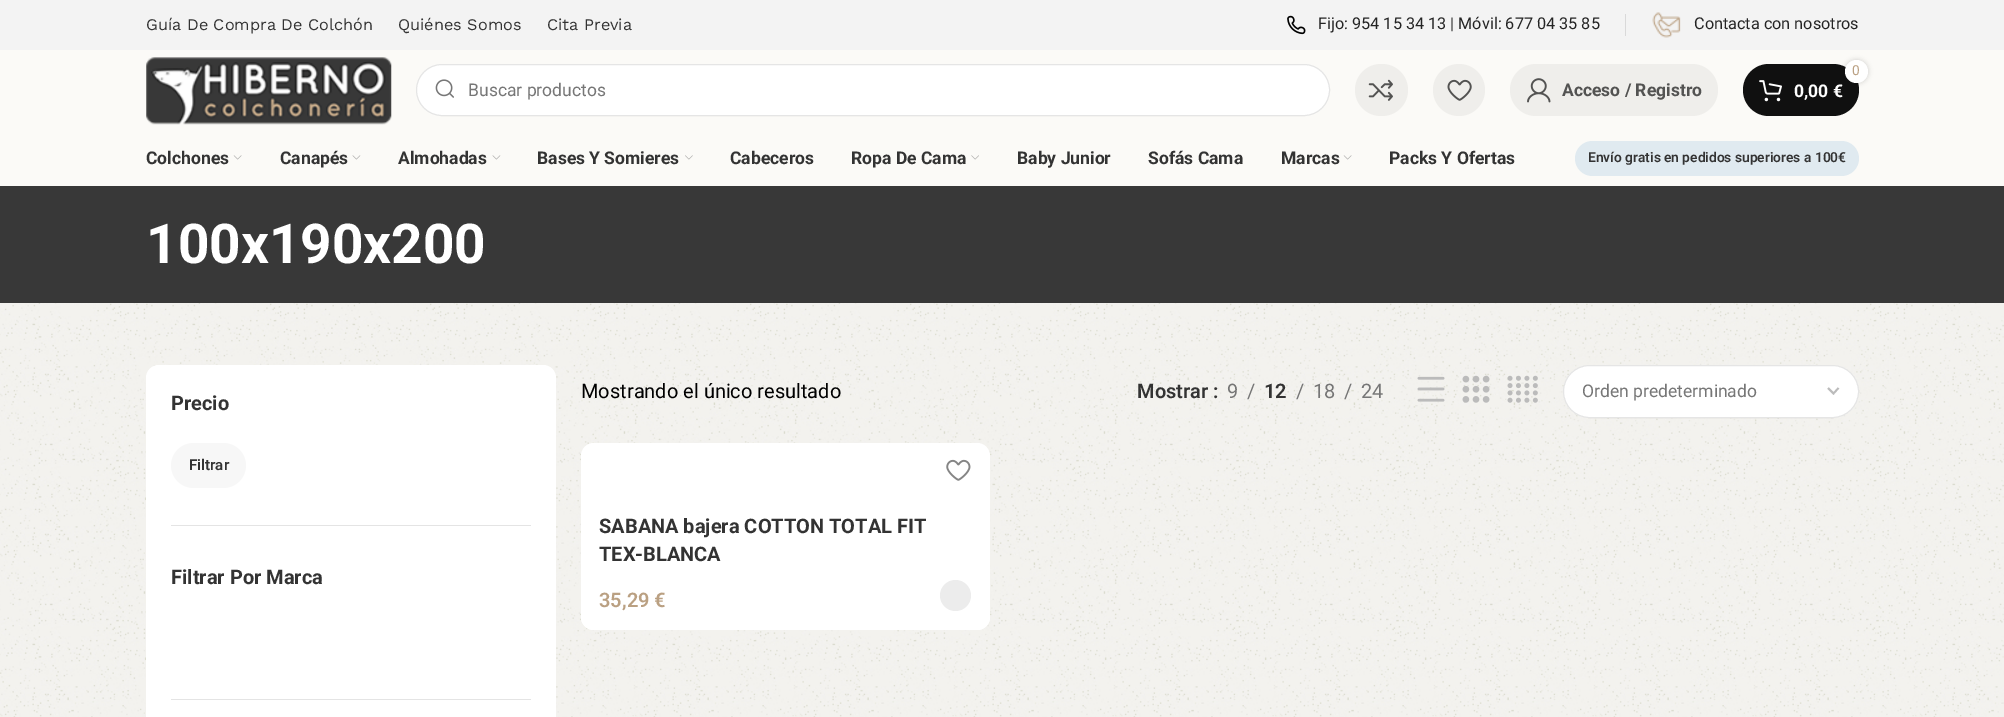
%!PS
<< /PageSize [2004 717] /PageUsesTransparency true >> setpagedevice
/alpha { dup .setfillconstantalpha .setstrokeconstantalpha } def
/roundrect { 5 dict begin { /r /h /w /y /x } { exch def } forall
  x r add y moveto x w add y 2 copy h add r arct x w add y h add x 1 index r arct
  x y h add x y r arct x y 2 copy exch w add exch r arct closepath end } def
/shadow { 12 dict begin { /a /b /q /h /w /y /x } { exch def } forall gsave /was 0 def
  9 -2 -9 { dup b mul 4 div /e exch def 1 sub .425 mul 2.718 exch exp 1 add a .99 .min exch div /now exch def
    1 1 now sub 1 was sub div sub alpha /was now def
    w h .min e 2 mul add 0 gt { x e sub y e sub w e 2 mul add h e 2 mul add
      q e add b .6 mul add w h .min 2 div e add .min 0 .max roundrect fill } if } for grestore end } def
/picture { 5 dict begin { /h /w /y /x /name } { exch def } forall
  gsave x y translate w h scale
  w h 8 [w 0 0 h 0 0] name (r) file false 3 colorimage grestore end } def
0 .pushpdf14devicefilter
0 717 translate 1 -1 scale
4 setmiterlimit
1 setgray
0 0 2004 717 rectfill
0.953 setgray
0 0 2004 50 rectfill
/WorkSans-Regular [16.25 0 0 -16.25 0 0] selectfont
0.2 setgray
146 30 moveto (Guía De Compra De Colchón) show
398 30 moveto (Quiénes Somos) show
547 30 moveto (Cita Previa) show
(img1.rgb) 1287 15 19 20 picture
/Roboto-Regular [16.25 0 0 -16.25 0 0] selectfont
0.141 setgray
1318 29 moveto (Fijo: 954 15 34 13 | Móvil: 677 04 35 85) show
0.851 setgray
1625 14 1 22 rectfill
(img2.rgb) 1652 12 29 26 picture
0.141 setgray
1694 29 moveto (Contacta con nosotros) show
0.984 0.98 0.969 setrgbcolor
0 50 2004 136 rectfill
(img3.rgb) 146 57 246 68 picture
1 setgray
416 64 914 52 26 roundrect fill
0.1 alpha
0 setgray
416.5 64.5 913 51 25.5 roundrect stroke
1 alpha
(img4.rgb) 435 79 19 19 picture
/Roboto-Regular [17.5 0 0 -17.5 0 0] selectfont
0.463 setgray
468 96 moveto (Buscar productos) show
0.937 0.933 0.922 setrgbcolor
1355 64 53 52 26 roundrect fill
(img5.rgb) 1368 79 25 22 picture
newpath 1459 90 26 0 360 arc closepath fill
(img6.rgb) 1447 79 25 22 picture
1510 64 208 52 26 roundrect fill
(img7.rgb) 1527 78 24 25 picture
/Roboto-Bold [17.5 0 0 -17.5 0 0] selectfont
0.325 0.325 0.322 setrgbcolor
1562 96 moveto (Acceso / Registro) show
0.063 setgray
1743 64 116 52 26 roundrect fill
0 setgray
1845 60 23 23 11.5 2.5 0.17 shadow
1 setgray
newpath 1856.5 71.5 11.5 0 360 arc closepath fill
/Roboto-Regular [13.75 0 0 -13.75 0 0] selectfont
0.729 0.627 0.51 setrgbcolor
1852 75 moveto (0) show
(img8.rgb) 1759 80 23 22 picture
/Roboto-Bold [17.5 0 0 -17.5 0 0] selectfont
1 setgray
1794 97 moveto (0,00 €) show
0.2 setgray
146 164 moveto (Colchones) show
(img9.rgb) 233 155 9 5 picture
280 164 moveto (Canapés) show
(img10.rgb) 352 155 9 5 picture
398 164 moveto (Almohadas) show
(img10.rgb) 492 155 9 5 picture
537 164 moveto (Bases Y Somieres) show
(img11.rgb) 685 155 8 5 picture
730 164 moveto (Cabeceros) show
851 164 moveto (Ropa De Cama) show
(img12.rgb) 971 155 8 5 picture
1017 164 moveto (Baby Junior) show
1148 164 moveto (Sofás Cama) show
1281 164 moveto (Marcas) show
(img9.rgb) 1343 155 9 5 picture
1389 164 moveto (Packs Y Ofertas) show
0.878 0.918 0.941 setrgbcolor
1575 141 284 35 17.5 roundrect fill
/Roboto-SemiBold [13.75 0 0 -13.75 0 0] selectfont
0.2 setgray
1588 162 moveto (Envío gratis en pedidos superiores a 100€) show
(img13.rgb) 0 303 2004 414 picture
0.22 setgray
0 186 2004 117 rectfill
/Roboto-Bold [55 0 0 -55 0 0] selectfont
1 setgray
146 263 moveto (100x190x200) show
146 365 410 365 13 roundrect fill
0.894 setgray
171 525 360 1 rectfill
/Roboto-Bold [20 0 0 -20 0 0] selectfont
0.2 setgray
171 410 moveto (Precio) show
0.969 setgray
171 443 75 45 22.5 roundrect fill
/Roboto-SemiBold [15 0 0 -15 0 0] selectfont
0.2 setgray
189 470 moveto (Filtrar) show
0.894 setgray
171 699 360 1 rectfill
/Roboto-Bold [20 0 0 -20 0 0] selectfont
0.2 setgray
171 584 moveto (Filtrar Por Marca) show
/Roboto-Regular [20 0 0 -20 0 0] selectfont
0 setgray
581 398 moveto (Mostrando el único resultado) show
/Roboto-SemiBold [20 0 0 -20 0 0] selectfont
0.2 setgray
1137 398 moveto (Mostrar :) show
/Roboto-Regular [20 0 0 -20 0 0] selectfont
0.463 setgray
1227 398 moveto (9) show
1247 398 moveto (/) show
/Roboto-SemiBold [20 0 0 -20 0 0] selectfont
0.2 setgray
1264 398 moveto (12) show
/Roboto-Regular [20 0 0 -20 0 0] selectfont
0.463 setgray
1296 398 moveto (/) show
1313 398 moveto (18) show
1344 398 moveto (/) show
1361 398 moveto (24) show
(img14.rgb) 1417 376 28 26 picture
(img15.rgb) 1462 375 28 28 picture
(img16.rgb) 1507 375 31 28 picture
1 setgray
1563 365 296 53 26.5 roundrect fill
0.733 setgray
1.8 setlinewidth
newpath 1828 388 moveto 1833.5 393.5 lineto 1838.5 388 lineto stroke
0.1 alpha
0 setgray
1 setlinewidth
1563.5 365.5 295 52 26 roundrect stroke
/Roboto-Regular [17.5 0 0 -17.5 0 0] selectfont
1 alpha
0.463 setgray
1582 397 moveto (Orden predeterminado) show
1 setgray
581 443 409 187 13 roundrect fill
(img17.rgb) 946 459 25 22 picture
newpath 581 499 moveto 990 499 lineto 990 617 lineto 990 624 984 630 977 630 curveto 594 630 lineto 587 630 581 624 581 617 curveto closepath fill
/Roboto-Bold [20 0 0 -20 0 0] selectfont
0.2 setgray
599 533 moveto (SABANA bajera COTTON TOTAL FIT) show
599 561 moveto (TEX-BLANCA) show
/Roboto-SemiBold [20 0 0 -20 0 0] selectfont
0.729 0.627 0.51 setrgbcolor
599 607 moveto (35,29 €) show
0.925 setgray
newpath 955.5 580 moveto 964 580 971 587 971 595.5 curveto 971 604 964 611 955.5 611 curveto 947 611 940 604 940 595.5 curveto 940 587 947 580 955.5 580 curveto closepath fill
.poppdf14devicefilter showpage
